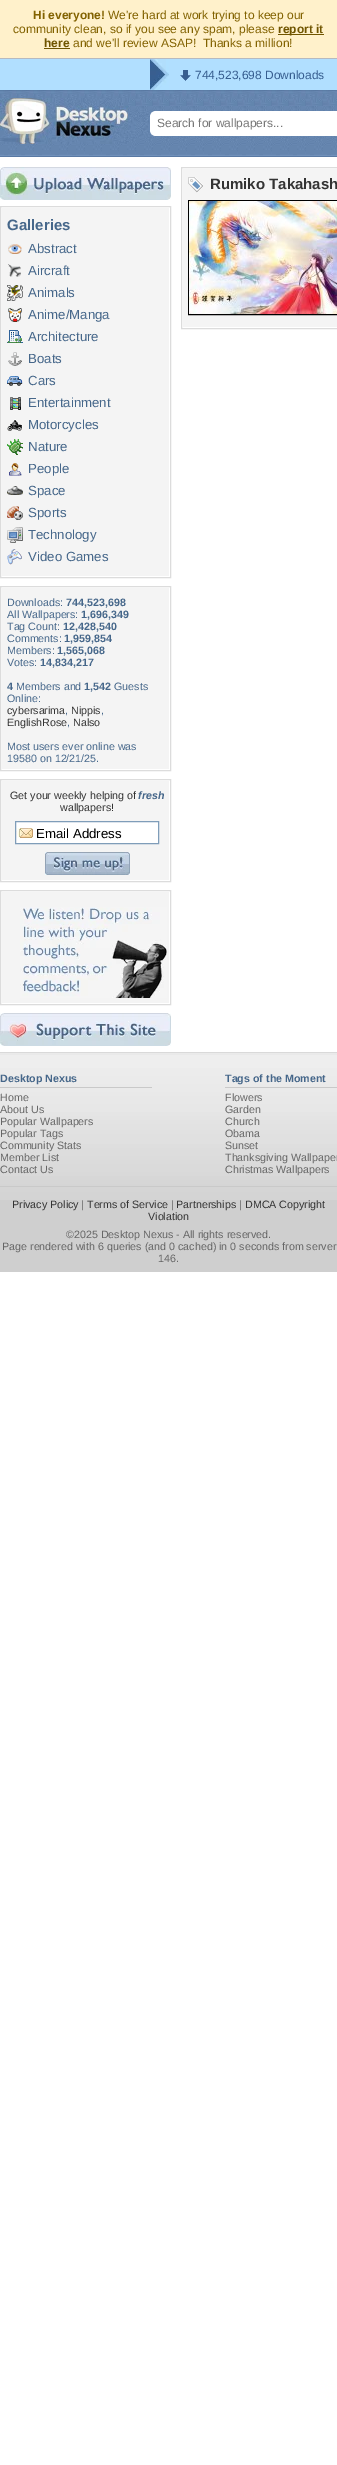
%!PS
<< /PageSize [337 2465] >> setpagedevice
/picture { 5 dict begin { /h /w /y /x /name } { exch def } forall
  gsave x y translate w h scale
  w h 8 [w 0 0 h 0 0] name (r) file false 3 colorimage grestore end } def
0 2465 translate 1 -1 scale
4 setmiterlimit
1 setgray
0 0 337 2465 rectfill
1 0.945 0.796 setrgbcolor
0 0 337 58 rectfill
/LiberationSans-Bold [12 0 0 -12 0 0] selectfont
0.51 0.384 0 setrgbcolor
33 19 moveto (Hi everyone!) show
/LiberationSans-Regular [12 0 0 -12 0 0] selectfont
108 19 moveto (We're hard at work trying to keep our) show
13 33 moveto (community clean, so if you see any spam, please) show
0.439 0.333 0 setrgbcolor
278 34 46 1 rectfill
/LiberationSans-Bold [12 0 0 -12 0 0] selectfont
278 33 moveto (report it) show
44 47 moveto (here) show
44 48 26 1 rectfill
/LiberationSans-Regular [12 0 0 -12 0 0] selectfont
0.51 0.384 0 setrgbcolor
73 47 moveto (and we'll review ASAP!  Thanks a million!) show
0.694 0.875 1 setrgbcolor
0 59 337 31 rectfill
0.714 0.729 0.753 setrgbcolor
0 58 337 1 rectfill
(img1.rgb) 150 59 19 31 picture
(img2.rgb) 180 70 11 11 picture
0.216 0.369 0.565 setrgbcolor
195 79 moveto (744,523,698 Downloads) show
(img3.rgb) 0 90 337 67 picture
(img4.rgb) 0 98 128 46 picture
1 setgray
newpath 156 111 moveto 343 111 lineto 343 136 lineto 156 136 lineto 152.5 136 150 133.5 150 130 curveto 150 117 lineto 150 113.5 152.5 111 156 111 curveto closepath fill
0.467 setgray
157 127 moveto (Search for wallpapers...) show
0.863 setgray
181.5 167.5 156 161 rectstroke
0.957 setgray
183 169 154 158 rectfill
(img5.rgb) 188 177 15 16 picture
/LiberationSans-Bold [15 0 0 -15 0 0] selectfont
0.2 setgray
210 189 moveto (Rumiko Takahash) show
0 setgray
188.5 200.5 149 114 rectstroke
(img6.rgb) 189 201 148 113 picture
(img7.rgb) 0 167 171 33 picture
0.863 setgray
0.5 206.5 170 371 rectstroke
0.957 setgray
2 208 167 368 rectfill
0.275 0.404 0.541 setrgbcolor
7 230 moveto (Galleries) show
(img8.rgb) 8 244 14 10 picture
/LiberationSans-Regular [13.25 0 0 -13.25 0 0] selectfont
28 253 moveto (Abstract) show
(img9.rgb) 8 264 13 13 picture
28 275 moveto (Aircraft) show
(img10.rgb) 7 285 16 16 picture
28 297 moveto (Animals) show
(img11.rgb) 8 308 14 14 picture
28 319 moveto (Anime/Manga) show
(img12.rgb) 7 330 16 13 picture
28 341 moveto (Architecture) show
(img13.rgb) 8 352 14 14 picture
28 363 moveto (Boats) show
(img14.rgb) 7 376 16 10 picture
28 385 moveto (Cars) show
(img15.rgb) 10 397 11 13 picture
28 407 moveto (Entertainment) show
(img16.rgb) 7 419 16 12 picture
28 429 moveto (Motorcycles) show
(img17.rgb) 7 439 16 16 picture
28 451 moveto (Nature) show
(img18.rgb) 9 463 13 13 picture
28 473 moveto (People) show
(img19.rgb) 7 486 16 9 picture
28 495 moveto (Space) show
(img20.rgb) 7 506 16 14 picture
28 517 moveto (Sports) show
(img21.rgb) 7 527 16 16 picture
28 539 moveto (Technology) show
(img22.rgb) 7 549 15 16 picture
28 561 moveto (Video Games) show
0.863 setgray
0.5 586.5 170 184 rectstroke
0.957 setgray
2 588 167 181 rectfill
/LiberationSans-Regular [10.7 0 0 -10.7 0 0] selectfont
0.275 0.404 0.541 setrgbcolor
7 606 moveto (Downloads:) show
/LiberationSans-Bold [10.7 0 0 -10.7 0 0] selectfont
66 606 moveto (744,523,698) show
/LiberationSans-Regular [10.7 0 0 -10.7 0 0] selectfont
7 618 moveto (All Wallpapers:) show
/LiberationSans-Bold [10.7 0 0 -10.7 0 0] selectfont
81 618 moveto (1,696,349) show
/LiberationSans-Regular [10.7 0 0 -10.7 0 0] selectfont
7 630 moveto (Tag Count:) show
/LiberationSans-Bold [10.7 0 0 -10.7 0 0] selectfont
63 630 moveto (12,428,540) show
/LiberationSans-Regular [10.7 0 0 -10.7 0 0] selectfont
7 642 moveto (Comments:) show
/LiberationSans-Bold [10.7 0 0 -10.7 0 0] selectfont
64 642 moveto (1,959,854) show
/LiberationSans-Regular [10.7 0 0 -10.7 0 0] selectfont
7 654 moveto (Members:) show
/LiberationSans-Bold [10.7 0 0 -10.7 0 0] selectfont
57 654 moveto (1,565,068) show
/LiberationSans-Regular [10.7 0 0 -10.7 0 0] selectfont
7 666 moveto (Votes:) show
/LiberationSans-Bold [10.7 0 0 -10.7 0 0] selectfont
40 666 moveto (14,834,217) show
7 690 moveto (4) show
/LiberationSans-Regular [10.7 0 0 -10.7 0 0] selectfont
16 690 moveto (Members and) show
/LiberationSans-Bold [10.7 0 0 -10.7 0 0] selectfont
84 690 moveto (1,542) show
/LiberationSans-Regular [10.7 0 0 -10.7 0 0] selectfont
114 690 moveto (Guests) show
7 702 moveto (Online:) show
0.2 setgray
7 714 moveto (cybersarima) show
0.275 0.404 0.541 setrgbcolor
65 714 moveto (,) show
0.2 setgray
71 714 moveto (Nippis) show
0.275 0.404 0.541 setrgbcolor
101 714 moveto (,) show
0.2 setgray
7 726 moveto (EnglishRose) show
0.275 0.404 0.541 setrgbcolor
67 726 moveto (,) show
0.2 setgray
73 726 moveto (Nalso) show
0.275 0.404 0.541 setrgbcolor
7 750 moveto (Most users ever online was) show
7 762 moveto (19580 on 12/21/25.) show
0.863 setgray
0.5 779.5 170 102 rectstroke
0.957 setgray
2 781 167 99 rectfill
0.2 setgray
10 799 moveto (Get your weekly helping of) show
/LiberationSans-BoldItalic [10.7 0 0 -10.7 0 0] selectfont
0.275 0.404 0.541 setrgbcolor
138 799 moveto (fresh) show
/LiberationSans-Regular [10.7 0 0 -10.7 0 0] selectfont
0.2 setgray
60 811 moveto (wallpapers!) show
1 setgray
16 822 142 21 rectfill
(img23.rgb) 16 828 17 10 picture
0.498 0.616 0.725 setrgbcolor
15.5 821.5 143 22 rectstroke
/LiberationSans-Regular [13.25 0 0 -13.25 0 0] selectfont
0 setgray
36 838 moveto (Email Address) show
(img24.rgb) 45 852 85 23 picture
0.863 setgray
0.5 890.5 170 114 rectstroke
0.957 setgray
2 892 167 111 rectfill
(img25.rgb) 20 907 147 91 picture
(img26.rgb) 0 1013 171 33 picture
0.812 setgray
0 1200 337 72 rectfill
(img27.rgb) 0 1052 337 148 picture
/LiberationSans-Bold [10.7 0 0 -10.7 0 0] selectfont
0.275 0.404 0.541 setrgbcolor
0 1082 moveto (Desktop Nexus) show
0.788 setgray
0 1087 152 1 rectfill
/LiberationSans-Regular [10.7 0 0 -10.7 0 0] selectfont
0.4 setgray
0 1101 moveto (Home) show
0 1113 moveto (About Us) show
0 1125 moveto (Popular Wallpapers) show
0 1137 moveto (Popular Tags) show
0 1149 moveto (Community Stats) show
0 1161 moveto (Member List) show
0 1173 moveto (Contact Us) show
/LiberationSans-Bold [10.7 0 0 -10.7 0 0] selectfont
0.275 0.404 0.541 setrgbcolor
225 1082 moveto (Tags of the Moment) show
0.788 setgray
225 1087 112 1 rectfill
/LiberationSans-Regular [10.7 0 0 -10.7 0 0] selectfont
0.4 setgray
225 1101 moveto (Flowers) show
225 1113 moveto (Garden) show
225 1125 moveto (Church) show
225 1137 moveto (Obama) show
225 1149 moveto (Sunset) show
225 1161 moveto (Thanksgiving Wallpaper) show
225 1173 moveto (Christmas Wallpapers) show
0.788 setgray
0 1186 337 1 rectfill
0.2 setgray
12 1208 moveto (Privacy Policy) show
0.4 setgray
81 1208 moveto (|) show
0.2 setgray
87 1208 moveto (Terms of Service) show
0.4 setgray
171 1208 moveto (|) show
0.2 setgray
176 1208 moveto (Partnerships) show
0.4 setgray
239 1208 moveto (|) show
0.2 setgray
245 1208 moveto (DMCA Copyright) show
148 1220 moveto (Violation) show
0.4 setgray
66 1238 moveto (©2025 Desktop Nexus - All rights reserved.) show
2 1250 moveto (Page rendered with 6 queries \(and 0 cached\) in 0 seconds from server) show
158 1262 moveto (146.) show
showpage
